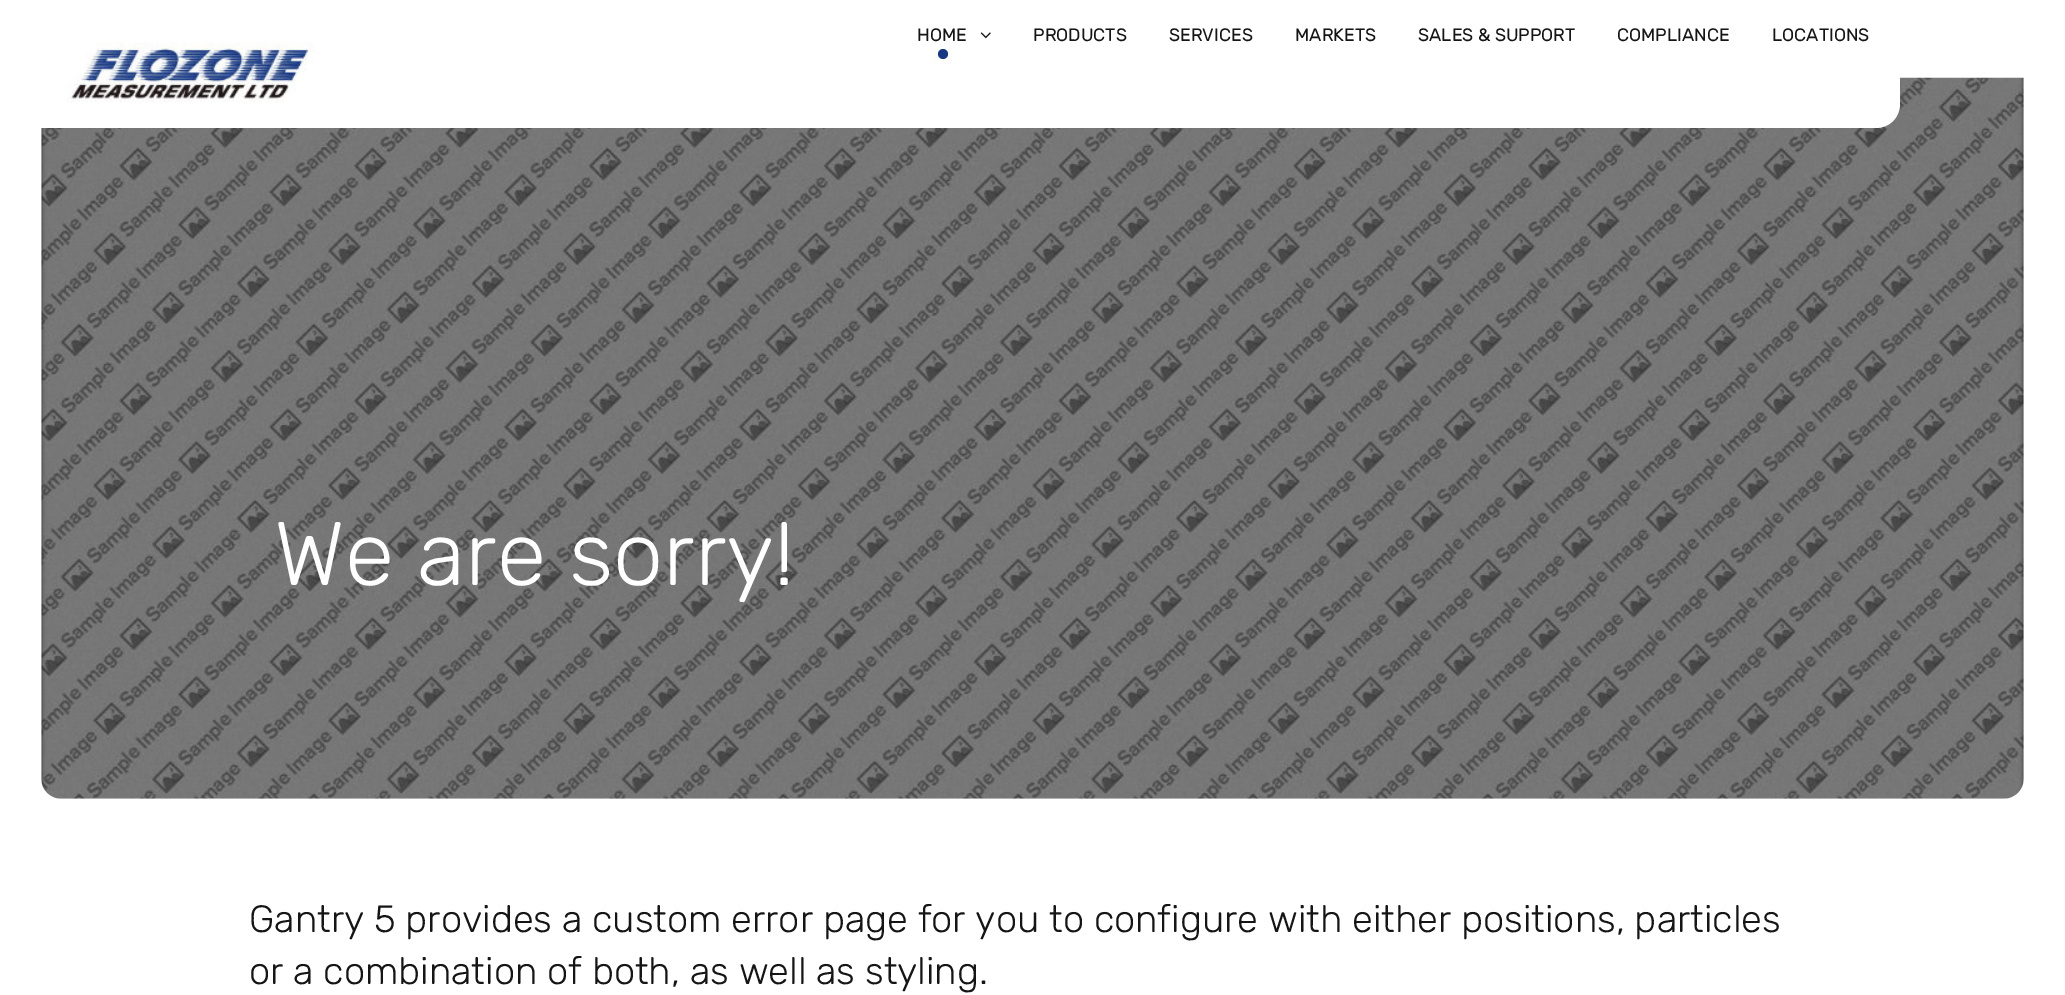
%!PS
<< /PageSize [2065 995] >> setpagedevice
/picture { 5 dict begin { /h /w /y /x /name } { exch def } forall
  gsave x y translate w h scale
  w h 8 [w 0 0 h 0 0] name (r) file false 3 colorimage grestore end } def
0 995 translate 1 -1 scale
4 setmiterlimit
1 setgray
0 0 2065 995 rectfill
(img3.rgb) 41 77 1983 722 picture
newpath 0 0 moveto 1900 0 lineto 1900 104 lineto 1900 117.5 1889.5 128 1876 128 curveto 0 128 lineto closepath fill
/Rubik-Regular [18 0 0 -18 0 0] selectfont
0.082 setgray
917 41 moveto (HOME) show
(img1.rgb) 980 32 11 7 picture
0.078 0.22 0.518 setrgbcolor
newpath 943 54 5 0 360 arc closepath fill
0.082 setgray
1033 41 moveto (PRODUCTS) show
1169 41 moveto (SERVICES) show
1295 41 moveto (MARKETS) show
1418 41 moveto (SALES & SUPPORT) show
1617 41 moveto (COMPLIANCE) show
1772 41 moveto (LOCATIONS) show
(img2.rgb) 66 42 248 61 picture
/Rubik-Light [90 0 0 -90 0 0] selectfont
1 setgray
274 585 moveto (We are sorry!) show
/Rubik-Light [38 0 0 -38 0 0] selectfont
0.082 setgray
249 932 moveto (Gantry 5 provides a custom error page for you to configure with either positions, particles) show
249 984 moveto (or a combination of both, as well as styling.) show
showpage
